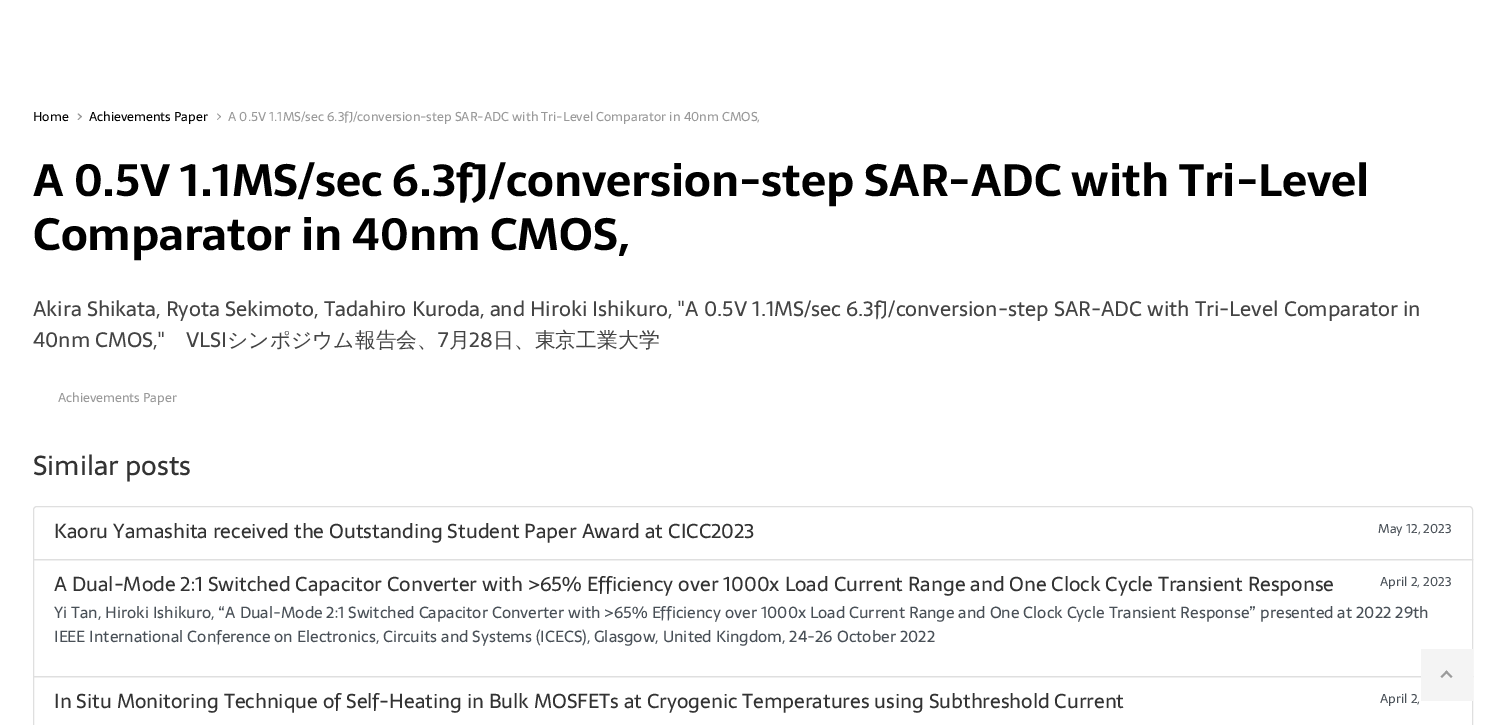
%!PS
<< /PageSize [1505 725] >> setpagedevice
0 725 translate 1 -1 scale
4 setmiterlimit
1 setgray
0 0 1505 725 rectfill
/Sarala-Regular [12.8 0 0 -12.8 0 0] selectfont
0 setgray
33 121 moveto (Home) show
0.6 setgray
newpath 77.5 114 moveto 78.5 113.5 lineto 82 116.5 lineto 81 117.5 lineto closepath fill
newpath 77.5 119.5 moveto 81 116 lineto 82 116.5 lineto 78.5 120 lineto closepath fill
0 setgray
89 121 moveto (Achievements Paper) show
0.6 setgray
newpath 217 114 moveto 217.5 113.5 lineto 221 116.5 lineto 220.5 117.5 lineto closepath fill
newpath 217 119.5 moveto 220.5 116 lineto 221 116.5 lineto 217.5 120 lineto closepath fill
228 121 moveto (A 0.5V 1.1MS/sec 6.3fJ/conversion-step SAR-ADC with Tri-Level Comparator in 40nm CMOS,) show
/Sarala-Bold [44.8 0 0 -44.8 0 0] selectfont
0 setgray
33 196 moveto (A 0.5V 1.1MS/sec 6.3fJ/conversion-step SAR-ADC with Tri-Level) show
33 250 moveto (Comparator in 40nm CMOS,) show
/Sarala-Regular [20.8 0 0 -20.8 0 0] selectfont
0.267 setgray
33 316 moveto (Akira Shikata, Ryota Sekimoto, Tadahiro Kuroda, and Hiroki Ishikuro, "A 0.5V 1.1MS/sec 6.3fJ/conversion-step SAR-ADC with Tri-Level Comparator in) show
33 347 moveto (40nm CMOS,") show
186 347 moveto (VLSI) show
/WenQuanYiZenHei-Medium [20.8 0 0 -20.8 0 0] selectfont
227 347 moveto (シンポジウム報告会、) show
/Sarala-Regular [20.8 0 0 -20.8 0 0] selectfont
438 347 moveto (7) show
/WenQuanYiZenHei-Medium [20.8 0 0 -20.8 0 0] selectfont
449 347 moveto (月) show
/Sarala-Regular [20.8 0 0 -20.8 0 0] selectfont
469 347 moveto (28) show
/WenQuanYiZenHei-Medium [20.8 0 0 -20.8 0 0] selectfont
493 347 moveto (日、東京工業大学) show
/Sarala-Regular [12.8 0 0 -12.8 0 0] selectfont
0.6 setgray
58 402 moveto (Achievements Paper) show
/Sarala-Regular [27.25 0 0 -27.25 0 0] selectfont
0.2 setgray
33 475 moveto (Similar posts) show
0.875 setgray
newpath 37 506.5 moveto 1469 506.5 lineto 1471 506.5 1472.5 508 1472.5 510 curveto 1472.5 559.5 lineto 33.5 559.5 lineto 33.5 510 lineto 33.5 508 35 506.5 37 506.5 curveto closepath stroke
/Sarala-Regular [20 0 0 -20 0 0] selectfont
0.2 setgray
54 538 moveto (Kaoru Yamashita received the Outstanding Student Paper Award at CICC2023) show
/Sarala-Regular [12.8 0 0 -12.8 0 0] selectfont
0.286 0.314 0.341 setrgbcolor
1378 533 moveto (May 12, 2023) show
0.875 setgray
33.5 559.5 1439 117 rectstroke
/Sarala-Regular [20 0 0 -20 0 0] selectfont
0.2 setgray
54 591 moveto (A Dual-Mode 2:1 Switched Capacitor Converter with >65% Efficiency over 1000x Load Current Range and One Clock Cycle Transient Response) show
/Sarala-Regular [12.8 0 0 -12.8 0 0] selectfont
0.286 0.314 0.341 setrgbcolor
1380 586 moveto (April 2, 2023) show
/Sarala-Regular [16 0 0 -16 0 0] selectfont
54 618 moveto (Yi Tan, Hiroki Ishikuro, “A Dual-Mode 2:1 Switched Capacitor Converter with >65% Efficiency over 1000x Load Current Range and One Clock Cycle Transient Response” presented at 2022 29th) show
54 642 moveto (IEEE International Conference on Electronics, Circuits and Systems \(ICECS\), Glasgow, United Kingdom, 24-26 October 2022) show
0.875 setgray
33.5 676.5 1439 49 rectstroke
/Sarala-Regular [20 0 0 -20 0 0] selectfont
0.2 setgray
54 708 moveto (In Situ Monitoring Technique of Self-Heating in Bulk MOSFETs at Cryogenic Temperatures using Subthreshold Current) show
/Sarala-Regular [12.8 0 0 -12.8 0 0] selectfont
0.286 0.314 0.341 setrgbcolor
1380 703 moveto (April 2,) show
0.957 setgray
1421 649 52 52 rectfill
0.608 setgray
newpath 1440.5 676.5 moveto 1446.5 670.5 lineto 1448 672 lineto 1442 678 lineto closepath fill
newpath 1445 672 moveto 1446.5 670.5 lineto 1452.5 676.5 lineto 1451 678 lineto closepath fill
showpage
